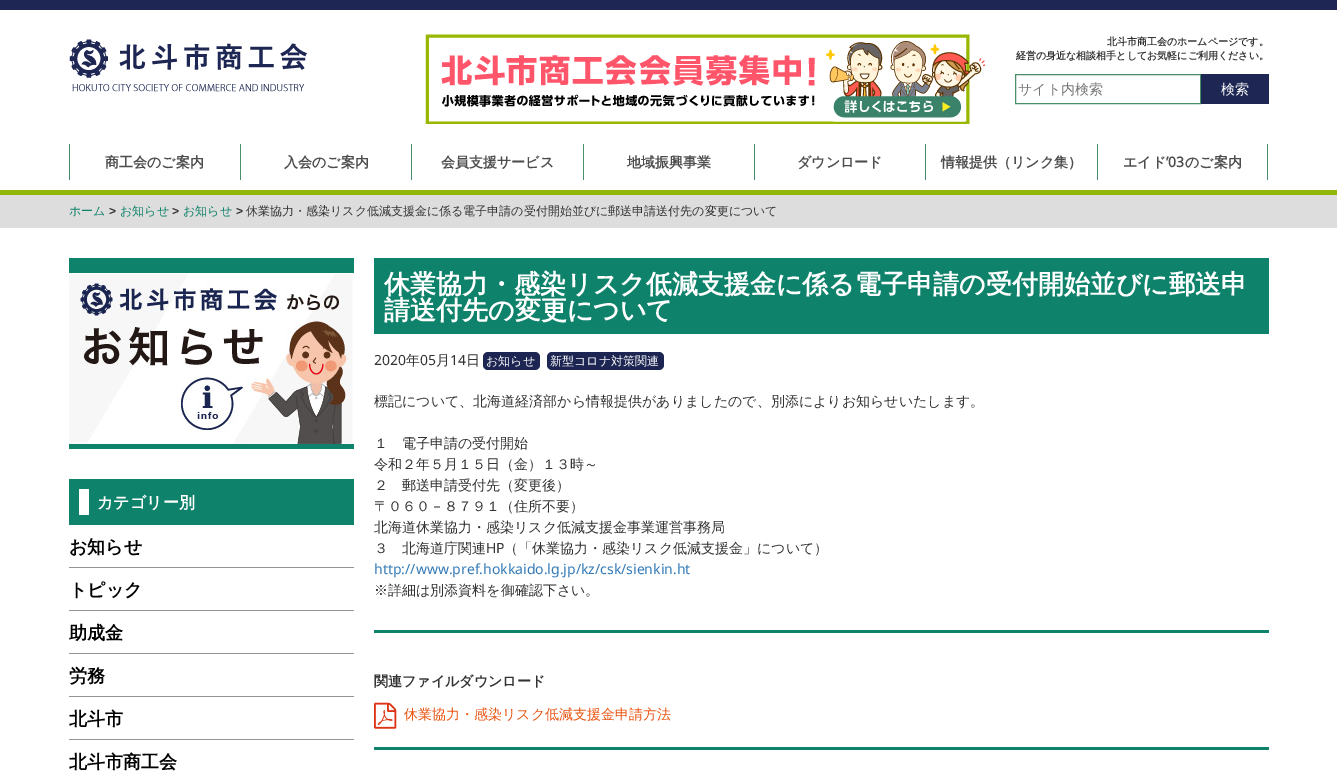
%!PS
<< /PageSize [1337 782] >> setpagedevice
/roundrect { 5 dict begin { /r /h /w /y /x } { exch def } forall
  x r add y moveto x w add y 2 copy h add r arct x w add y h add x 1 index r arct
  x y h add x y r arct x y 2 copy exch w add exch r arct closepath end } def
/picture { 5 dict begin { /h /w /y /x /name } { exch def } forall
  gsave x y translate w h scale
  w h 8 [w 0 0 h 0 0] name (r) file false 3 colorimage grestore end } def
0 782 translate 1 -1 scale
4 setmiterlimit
1 setgray
0 0 1337 782 rectfill
0.118 0.153 0.329 setrgbcolor
0 0 1337 10 rectfill
0.573 0.718 0.043 setrgbcolor
0 190 1337 5 rectfill
(img1.rgb) 69 39 238 53 picture
(img2.rgb) 425 34 560 90 picture
/WenQuanYiZenHei-Bold [10 0 0 -10 0 0] selectfont
0.2 setgray
1107 45 moveto (北斗市商工会のホームページです。) show
1016 59 moveto (経営の身近な相談相手としてお気軽にご利用ください。) show
0.286 0.557 0.408 setrgbcolor
1015.5 74.5 185 29 rectstroke
/WenQuanYiZenHei-Medium [14 0 0 -14 0 0] selectfont
0.459 setgray
1018 94 moveto (サイト内検索) show
0.118 0.153 0.329 setrgbcolor
1201 74 68 30 rectfill
1 setgray
1221 94 moveto (検索) show
0.286 0.557 0.408 setrgbcolor
69 144 1 36 rectfill
/WenQuanYiZenHei-Bold [14 0 0 -14 0 0] selectfont
0.302 setgray
105 167 moveto (商工会のご案内) show
0.286 0.557 0.408 setrgbcolor
240 144 1 36 rectfill
0.302 setgray
284 167 moveto (入会のご案内) show
0.286 0.557 0.408 setrgbcolor
411 144 1 36 rectfill
0.302 setgray
441 167 moveto (会員支援サービス) show
0.286 0.557 0.408 setrgbcolor
583 144 1 36 rectfill
0.302 setgray
627 167 moveto (地域振興事業) show
0.286 0.557 0.408 setrgbcolor
754 144 1 36 rectfill
0.302 setgray
797 167 moveto (ダウンロード) show
0.286 0.557 0.408 setrgbcolor
925 144 1 36 rectfill
0.302 setgray
941 167 moveto (情報提供（リンク集）) show
0.286 0.557 0.408 setrgbcolor
1267 144 1 36 rectfill
1097 144 1 36 rectfill
0.302 setgray
1123 167 moveto (エイド) show
/NotoSans-Bold [14 0 0 -14 0 0] selectfont
1166 167 moveto (’03) show
/WenQuanYiZenHei-Bold [14 0 0 -14 0 0] selectfont
1185 167 moveto (のご案内) show
0.867 setgray
0 195 1337 33 rectfill
/WenQuanYiZenHei-Medium [12 0 0 -12 0 0] selectfont
0.055 0.51 0.416 setrgbcolor
69 215 moveto (ホーム) show
/LiberationSans-Bold [12 0 0 -12 0 0] selectfont
0.2 setgray
109 215 moveto (>) show
/WenQuanYiZenHei-Medium [12 0 0 -12 0 0] selectfont
0.055 0.51 0.416 setrgbcolor
120 215 moveto (お知らせ) show
/LiberationSans-Bold [12 0 0 -12 0 0] selectfont
0.2 setgray
172 215 moveto (>) show
/WenQuanYiZenHei-Medium [12 0 0 -12 0 0] selectfont
0.055 0.51 0.416 setrgbcolor
183 215 moveto (お知らせ) show
/LiberationSans-Bold [12 0 0 -12 0 0] selectfont
0.2 setgray
236 215 moveto (>) show
/WenQuanYiZenHei-Medium [12 0 0 -12 0 0] selectfont
246 215 moveto (休業協力・感染リスク低減支援金に係る電子申請の受付開始並びに郵送申請送付先の変更について) show
0.055 0.51 0.416 setrgbcolor
69 258 285 15 rectfill
69 444 285 5 rectfill
(img3.rgb) 69 274 284 170 picture
69 479 285 46 rectfill
1 setgray
79 489 10 26 rectfill
/WenQuanYiZenHei-Bold [16 0 0 -16 0 0] selectfont
97 508 moveto (カテゴリー別) show
0.58 setgray
69 567 285 1 rectfill
/WenQuanYiZenHei-Bold [18 0 0 -18 0 0] selectfont
0 setgray
69 553 moveto (お知らせ) show
0.58 setgray
69 610 285 1 rectfill
0 setgray
69 596 moveto (トピック) show
0.58 setgray
69 653 285 1 rectfill
0 setgray
69 639 moveto (助成金) show
0.58 setgray
69 696 285 1 rectfill
0 setgray
69 682 moveto (労務) show
0.58 setgray
69 739 285 1 rectfill
0 setgray
69 725 moveto (北斗市) show
69 768 moveto (北斗市商工会) show
0.055 0.51 0.416 setrgbcolor
374 258 895 76 rectfill
/WenQuanYiZenHei-Bold [26 0 0 -26 0 0] selectfont
1 setgray
384 293 moveto (休業協力・感染リスク低減支援金に係る電子申請の受付開始並びに郵送申) show
384 319 moveto (請送付先の変更について) show
/NotoSans-Regular [14 0 0 -14 0 0] selectfont
0.2 setgray
374 365 moveto (2020) show
/WenQuanYiZenHei-Medium [14 0 0 -14 0 0] selectfont
406 365 moveto (年) show
/NotoSans-Regular [14 0 0 -14 0 0] selectfont
420 365 moveto (05) show
/WenQuanYiZenHei-Medium [14 0 0 -14 0 0] selectfont
436 365 moveto (月) show
/NotoSans-Regular [14 0 0 -14 0 0] selectfont
450 365 moveto (14) show
/WenQuanYiZenHei-Medium [14 0 0 -14 0 0] selectfont
466 365 moveto (日) show
0.114 0.149 0.322 setrgbcolor
483 352 57 18 5 roundrect fill
/WenQuanYiZenHei-Medium [12 0 0 -12 0 0] selectfont
1 setgray
486 365 moveto (お知らせ) show
0.114 0.149 0.322 setrgbcolor
547 352 117 18 5 roundrect fill
1 setgray
550 365 moveto (新型コロナ対策関連) show
/WenQuanYiZenHei-Medium [14 0 0 -14 0 0] selectfont
0.2 setgray
374 406 moveto (標記について、北海道経済部から情報提供がありましたので、別添によりお知らせいたします。) show
374 448 moveto (１　電子申請の受付開始) show
374 469 moveto (令和２年５月１５日（金）１３時～) show
374 490 moveto (２　郵送申請受付先（変更後）) show
374 511 moveto (〒０６０－８７９１（住所不要）) show
374 532 moveto (北海道休業協力・感染リスク低減支援金事業運営事務局) show
374 553 moveto (３　北海道庁関連) show
/NotoSans-Regular [14 0 0 -14 0 0] selectfont
486 553 moveto (HP) show
/WenQuanYiZenHei-Medium [14 0 0 -14 0 0] selectfont
504 553 moveto (（「休業協力・感染リスク低減支援金」について）) show
/NotoSans-Regular [14 0 0 -14 0 0] selectfont
0.2 0.478 0.718 setrgbcolor
374 574 moveto (http://www.pref.hokkaido.lg.jp/kz/csk/sienkin.ht) show
/WenQuanYiZenHei-Medium [14 0 0 -14 0 0] selectfont
0.2 setgray
374 595 moveto (※詳細は別添資料を御確認下さい。) show
0.055 0.51 0.416 setrgbcolor
374 630 895 3 rectfill
374 747 895 3 rectfill
/WenQuanYiZenHei-Bold [14 0 0 -14 0 0] selectfont
0.2 setgray
374 686 moveto (関連ファイルダウンロード) show
(img4.rgb) 374 702 23 27 picture
/WenQuanYiZenHei-Medium [14 0 0 -14 0 0] selectfont
0.914 0.333 0.075 setrgbcolor
404 719 moveto (休業協力・感染リスク低減支援金申請方法) show
showpage
